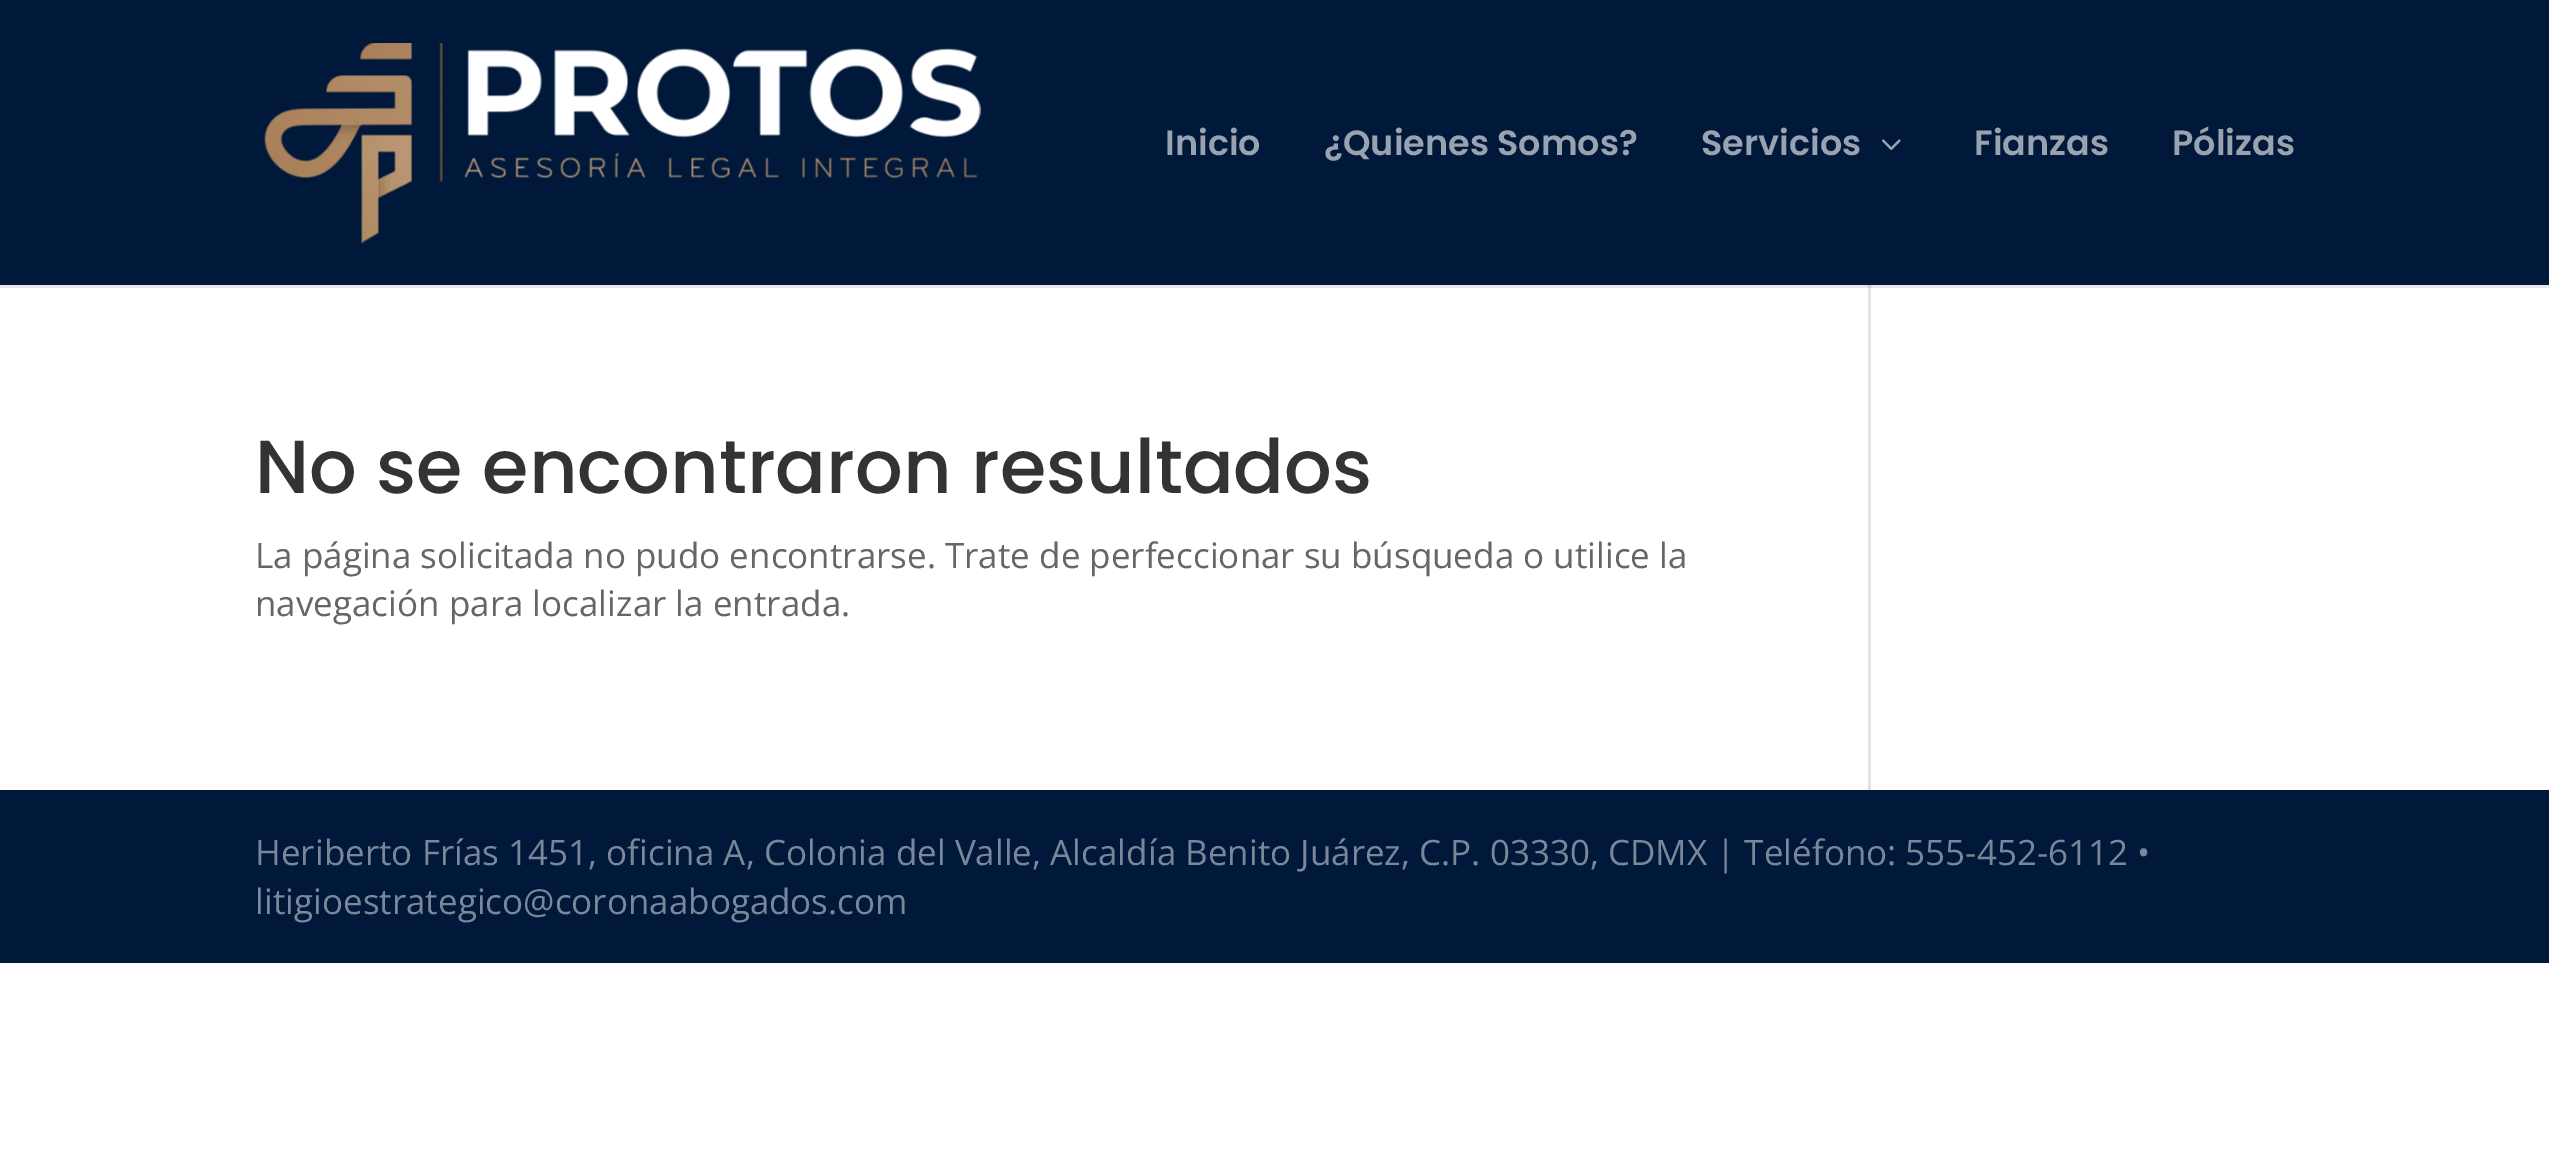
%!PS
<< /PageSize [2549 1162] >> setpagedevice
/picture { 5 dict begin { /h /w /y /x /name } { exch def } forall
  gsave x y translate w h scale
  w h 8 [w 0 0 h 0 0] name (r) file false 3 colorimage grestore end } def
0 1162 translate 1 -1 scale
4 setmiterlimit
1 setgray
0 0 2549 1162 rectfill
0.902 setgray
0 285 2549 3 rectfill
0 0.094 0.227 setrgbcolor
0 0 2549 285 rectfill
(img1.rgb) 264 43 717 200 picture
/Poppins-SemiBold [35 0 0 -35 0 0] selectfont
0.6 0.639 0.69 setrgbcolor
1165 155 moveto (Inicio) show
1324 155 moveto (¿Quienes Somos?) show
1701 155 moveto (Servicios) show
(img2.rgb) 1881 139 20 11 picture
1974 155 moveto (Fianzas) show
2172 155 moveto (Pólizas) show
/Poppins-Medium [75 0 0 -75 0 0] selectfont
0.2 setgray
255 493 moveto (No se encontraron resultados) show
/OpenSans-Regular [35 0 0 -35 0 0] selectfont
0.4 setgray
255 568 moveto (La página solicitada no pudo encontrarse. Trate de perfeccionar su búsqueda o utilice la) show
255 616 moveto (navegación para localizar la entrada.) show
0.886 setgray
1868 285 3 505 rectfill
0.796 setgray
1868 285 3 3 rectfill
0 0.094 0.227 setrgbcolor
0 790 2549 173 rectfill
0.478 0.529 0.6 setrgbcolor
255 865 moveto (Heriberto Frías 1451, oficina A, Colonia del Valle, Alcaldía Benito Juárez, C.P. 03330, CDMX | Teléfono: 555-452-6112 •) show
255 914 moveto (litigioestrategico@coronaabogados.com) show
showpage
